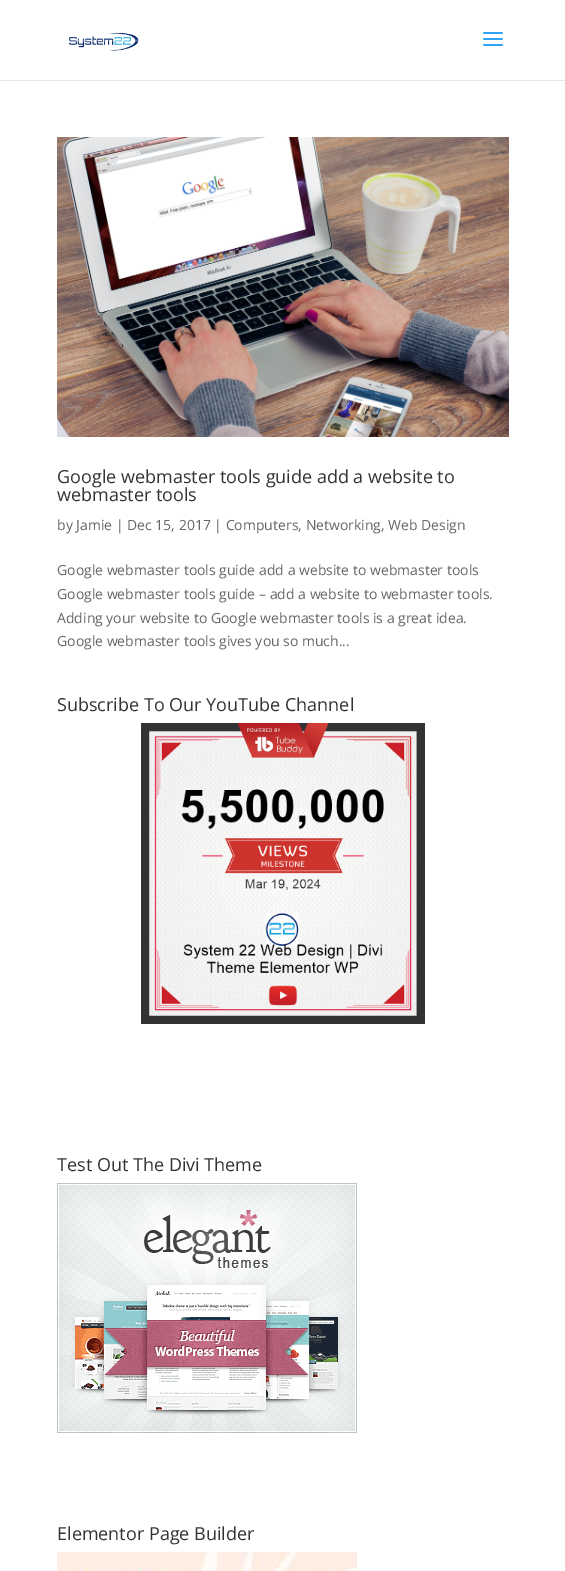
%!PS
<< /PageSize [565 1571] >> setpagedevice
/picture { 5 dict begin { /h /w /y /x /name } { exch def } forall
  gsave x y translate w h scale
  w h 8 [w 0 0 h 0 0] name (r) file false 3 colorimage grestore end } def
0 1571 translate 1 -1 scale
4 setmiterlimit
1 setgray
0 0 565 1571 rectfill
0.902 setgray
0 80 565 1 rectfill
(img1.rgb) 69 32 70 19 picture
(img2.rgb) 483 32 20 14 picture
(img3.rgb) 57 137 452 300 picture
/OpenSans-Regular [18 0 0 -18 0 0] selectfont
0.2 setgray
57 483 moveto (Google webmaster tools guide add a website to) show
57 501 moveto (webmaster tools) show
/OpenSans-Regular [14 0 0 -14 0 0] selectfont
0.4 setgray
57 530 moveto (by Jamie | Dec 15, 2017 | Computers, Networking, Web Design) show
57 575 moveto (Google webmaster tools guide add a website to webmaster tools) show
57 599 moveto (Google webmaster tools guide – add a website to webmaster tools.) show
57 623 moveto (Adding your website to Google webmaster tools is a great idea.) show
57 646 moveto (Google webmaster tools gives you so much...) show
/OpenSans-Regular [18 0 0 -18 0 0] selectfont
0.2 setgray
57 711 moveto (Subscribe To Our YouTube Channel) show
(img4.rgb) 141 723 284 301 picture
57 1171 moveto (Test Out The Divi Theme) show
(img5.rgb) 57 1183 300 250 picture
57 1540 moveto (Elementor Page Builder) show
(img6.rgb) 57 1552 300 19 picture
showpage
